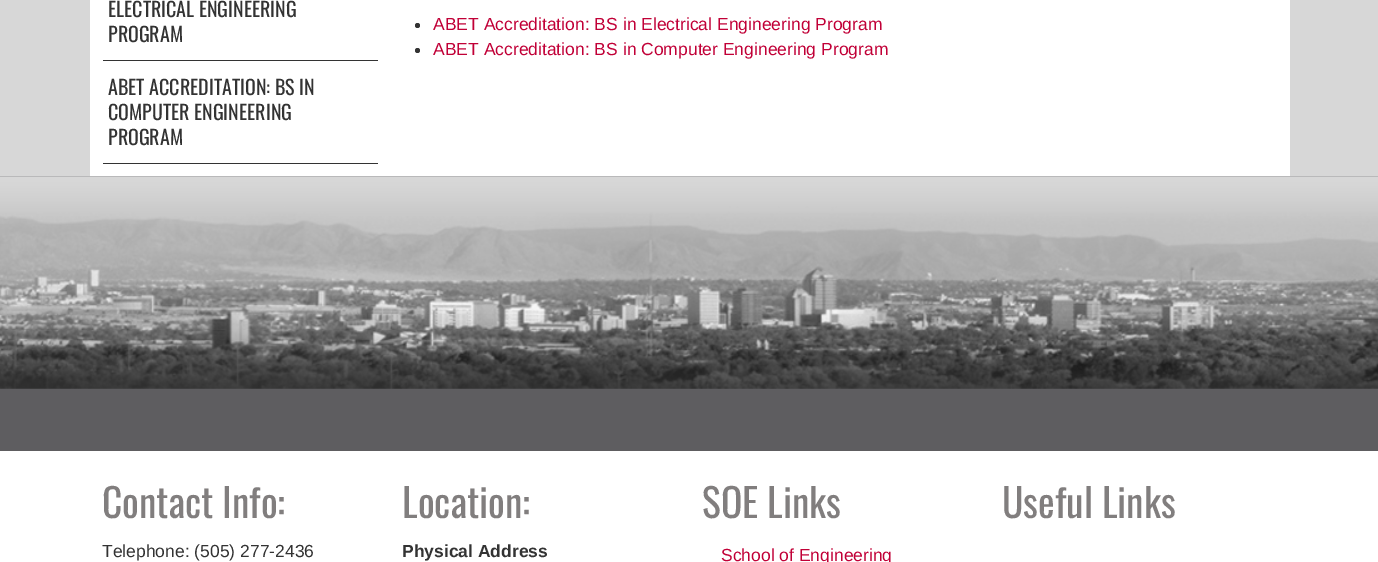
%!PS
<< /PageSize [1378 562] >> setpagedevice
/picture { 5 dict begin { /h /w /y /x /name } { exch def } forall
  gsave x y translate w h scale
  w h 8 [w 0 0 h 0 0] name (r) file false 3 colorimage grestore end } def
0 562 translate 1 -1 scale
4 setmiterlimit
0.843 setgray
0 0 1378 562 rectfill
1 setgray
90 0 1200 176 rectfill
0.2 setgray
103 60 275 1 rectfill
/Oswald-Regular [20 0 0 -20 0 0] selectfont
108 17 moveto (ELECTRICAL ENGINEERING) show
108 42 moveto (PROGRAM) show
103 163 275 1 rectfill
108 95 moveto (ABET ACCREDITATION: BS IN) show
108 120 moveto (COMPUTER ENGINEERING) show
108 145 moveto (PROGRAM) show
newpath 417.5 25.5 2.5 0 360 arc closepath fill
/LiberationSans-Regular [17.5 0 0 -17.5 0 0] selectfont
0.757 0 0.216 setrgbcolor
433 30 moveto (ABET Accreditation: BS in Electrical Engineering Program) show
0.2 setgray
newpath 417.5 50.5 2.5 0 360 arc closepath fill
0.757 0 0.216 setrgbcolor
433 55 moveto (ABET Accreditation: BS in Computer Engineering Program) show
0.369 0.365 0.376 setrgbcolor
0 176 1378 275 rectfill
(img1.rgb) 0 176 1378 213 picture
1 setgray
0 451 1378 111 rectfill
/Oswald-Regular [39.5 0 0 -39.5 0 0] selectfont
0.506 0.494 0.494 setrgbcolor
102 518 moveto (Contact Info:) show
/LiberationSans-Regular [17.5 0 0 -17.5 0 0] selectfont
0.2 setgray
102 557 moveto (Telephone: \(505\) 277-2436) show
/Oswald-Regular [39.5 0 0 -39.5 0 0] selectfont
0.506 0.494 0.494 setrgbcolor
402 518 moveto (Location:) show
/LiberationSans-Bold [17.5 0 0 -17.5 0 0] selectfont
0.2 setgray
402 557 moveto (Physical Address) show
/Oswald-Regular [39.5 0 0 -39.5 0 0] selectfont
0.506 0.494 0.494 setrgbcolor
702 518 moveto (SOE Links) show
/LiberationSans-Regular [17.5 0 0 -17.5 0 0] selectfont
0.757 0 0.216 setrgbcolor
721 561 moveto (School of Engineering) show
/Oswald-Regular [39.5 0 0 -39.5 0 0] selectfont
0.506 0.494 0.494 setrgbcolor
1002 518 moveto (Useful Links) show
showpage
